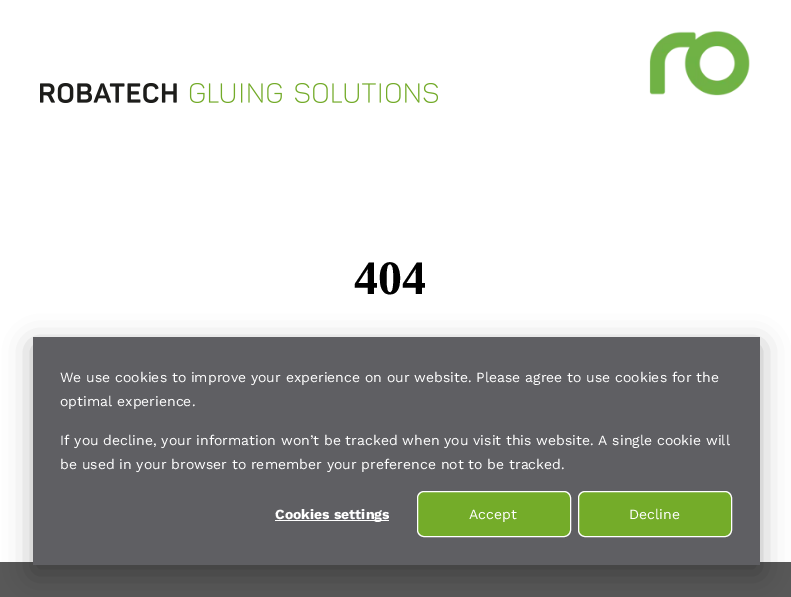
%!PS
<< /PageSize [791 597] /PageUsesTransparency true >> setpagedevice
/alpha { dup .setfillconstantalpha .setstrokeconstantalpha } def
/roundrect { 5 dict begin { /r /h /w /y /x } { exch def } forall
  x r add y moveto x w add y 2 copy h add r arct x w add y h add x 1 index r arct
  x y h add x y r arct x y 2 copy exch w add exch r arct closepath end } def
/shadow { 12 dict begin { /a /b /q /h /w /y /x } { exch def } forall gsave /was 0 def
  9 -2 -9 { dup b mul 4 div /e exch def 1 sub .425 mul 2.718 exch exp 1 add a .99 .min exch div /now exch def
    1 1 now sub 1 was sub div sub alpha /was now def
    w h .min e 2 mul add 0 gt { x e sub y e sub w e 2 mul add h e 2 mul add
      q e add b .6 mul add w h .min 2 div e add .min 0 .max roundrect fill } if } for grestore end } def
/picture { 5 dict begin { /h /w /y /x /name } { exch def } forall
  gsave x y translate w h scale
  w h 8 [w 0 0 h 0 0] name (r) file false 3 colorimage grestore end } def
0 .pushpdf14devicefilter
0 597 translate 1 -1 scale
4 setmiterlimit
1 setgray
0 0 791 597 rectfill
(img1.rgb) 40 83 398 20 picture
(img2.rgb) 649 31 101 65 picture
/LiberationSerif-Bold [48 0 0 -48 0 0] selectfont
0 setgray
354 294 moveto (404) show
0.345 setgray
0 562 791 35 rectfill
0 setgray
33 345 727 228 0 14 0.28 shadow
0.373 0.373 0.388 setrgbcolor
33 337 727 228 rectfill
/WorkSans-Regular [14 0 0 -14 0 0] selectfont
1 setgray
60 382 moveto (We use cookies to improve your experience on our website. Please agree to use cookies for the) show
60 406 moveto (optimal experience.) show
60 445 moveto (If you decline, your information won’t be tracked when you visit this website. A single cookie will) show
60 469 moveto (be used in your browser to remember your preference not to be tracked.) show
275 520 114 1 rectfill
/WorkSans-Bold [14 0 0 -14 0 0] selectfont
275 519 moveto (Cookies settings) show
0.455 0.675 0.161 setrgbcolor
417.5 491.5 153 45 6.5 roundrect gsave fill grestore
1 setgray
stroke
/WorkSans-Regular [14 0 0 -14 0 0] selectfont
469 519 moveto (Accept) show
0.455 0.675 0.161 setrgbcolor
578.5 491.5 153 45 6.5 roundrect gsave fill grestore
1 setgray
stroke
629 519 moveto (Decline) show
.poppdf14devicefilter showpage
